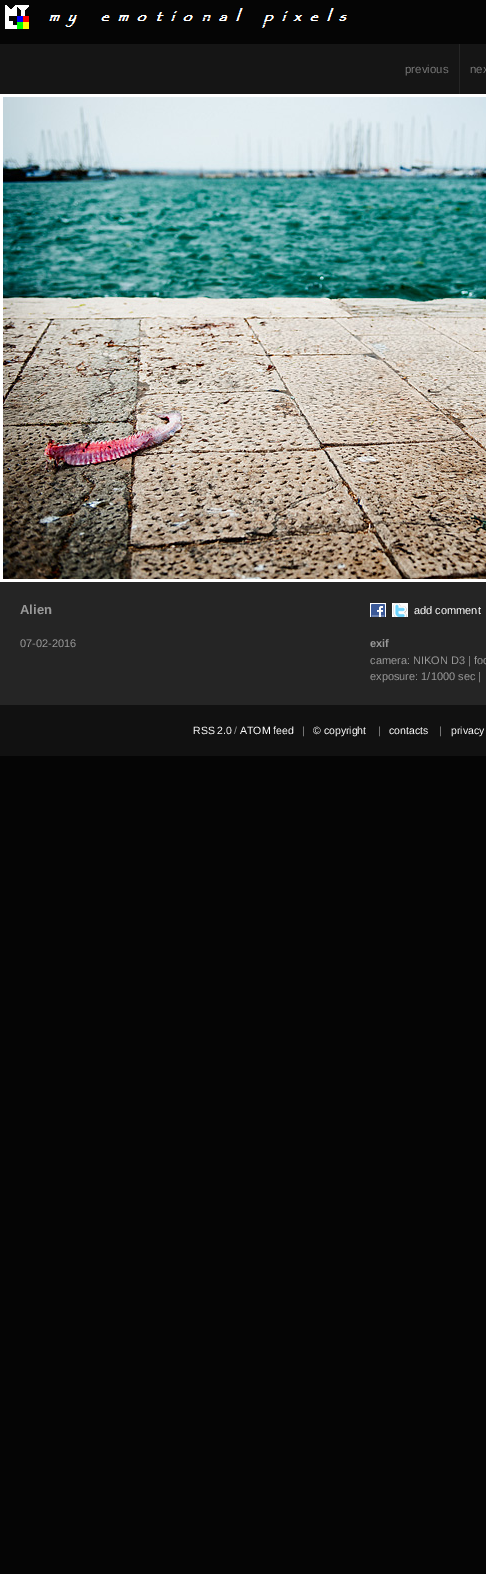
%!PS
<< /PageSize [486 1574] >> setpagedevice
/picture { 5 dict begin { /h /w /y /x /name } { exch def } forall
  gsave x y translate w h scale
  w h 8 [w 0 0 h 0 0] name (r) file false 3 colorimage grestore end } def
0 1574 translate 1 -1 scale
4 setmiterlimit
0.02 setgray
0 0 486 1574 rectfill
(img1.rgb) 5 5 342 24 picture
0.082 setgray
0 44 486 50 rectfill
0.145 setgray
459 44 1 50 rectfill
/LiberationSans-Regular [11.5 0 0 -11.5 0 0] selectfont
0.467 setgray
405 73 moveto (previous) show
470 73 moveto (nex) show
1 setgray
3 setlinewidth
1.5 95.5 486 485 rectstroke
(img2.rgb) 3 97 483 482 picture
0.145 setgray
0 582 486 123 rectfill
/LiberationSans-Bold [13 0 0 -13 0 0] selectfont
0.6 setgray
20 614 moveto (Alien) show
/LiberationSans-Regular [11 0 0 -11 0 0] selectfont
20 647 moveto (07-02-2016) show
(img3.rgb) 370 603 16 14 picture
(img4.rgb) 392 603 16 14 picture
1 setgray
414 614 moveto (add comment) show
/LiberationSans-Bold [11 0 0 -11 0 0] selectfont
0.6 setgray
370 647 moveto (exif) show
/LiberationSans-Regular [11 0 0 -11 0 0] selectfont
370 664 moveto (camera: NIKON D3 | foc) show
370 680 moveto (exposure: 1/1000 sec |) show
0.067 setgray
0 705 486 51 rectfill
/LiberationSans-Regular [10.5 0 0 -10.5 0 0] selectfont
1 setgray
193 734 moveto (RSS 2.0) show
0.6 setgray
234 734 moveto (/) show
1 setgray
240 734 moveto (ATOM feed) show
0.6 setgray
302 734 moveto (|) show
1 setgray
313 734 moveto (© copyright) show
0.6 setgray
378 734 moveto (|) show
1 setgray
389 734 moveto (contacts) show
0.6 setgray
439 734 moveto (|) show
1 setgray
451 734 moveto (privacy) show
showpage
